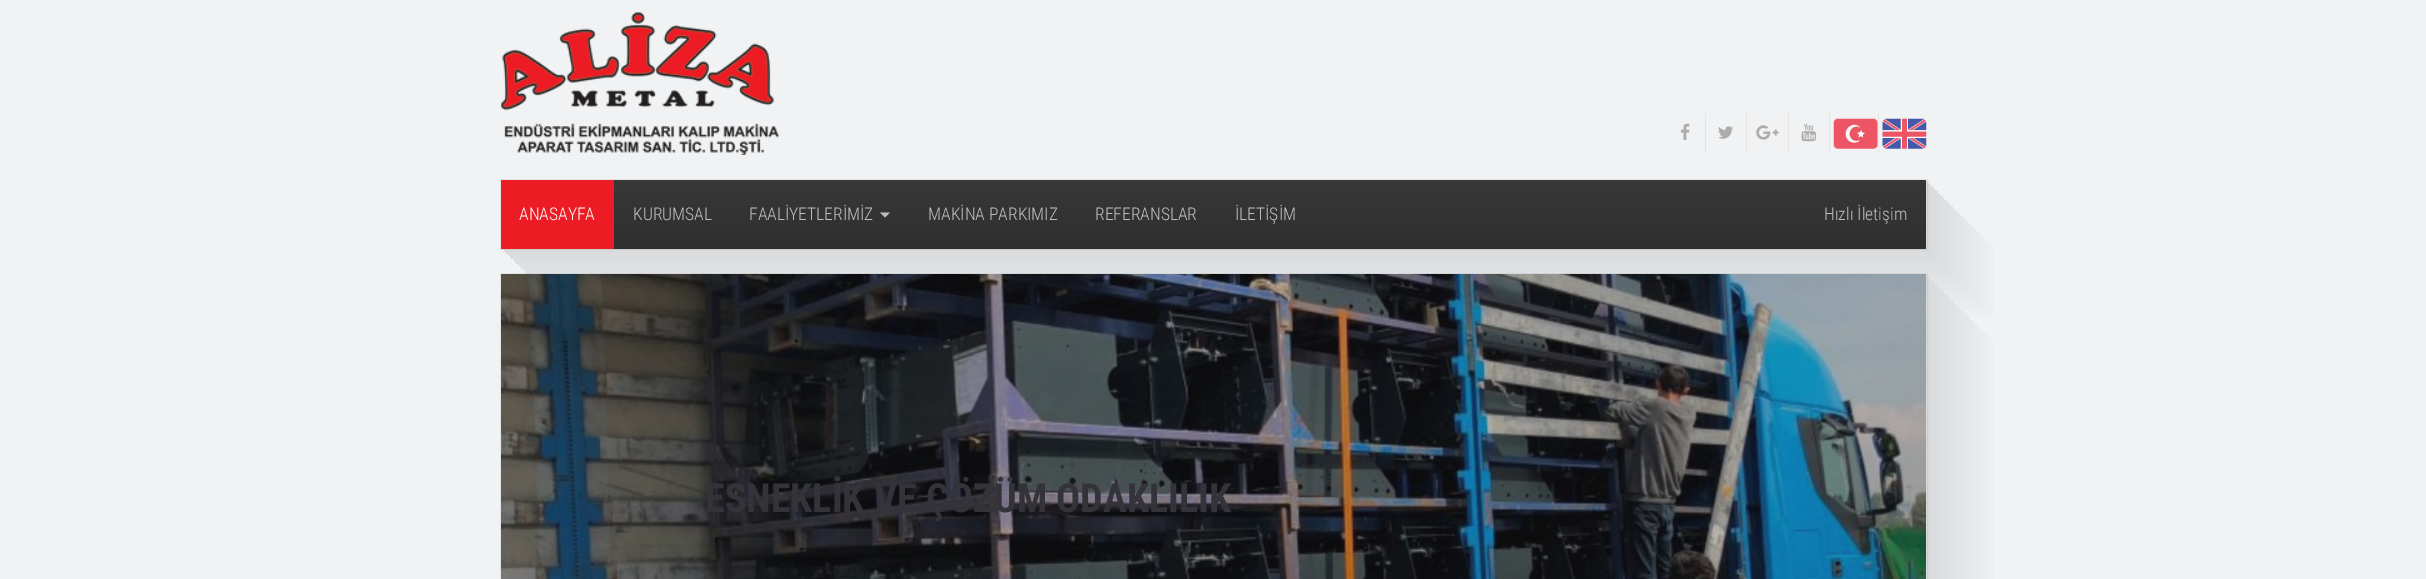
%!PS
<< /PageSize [2426 579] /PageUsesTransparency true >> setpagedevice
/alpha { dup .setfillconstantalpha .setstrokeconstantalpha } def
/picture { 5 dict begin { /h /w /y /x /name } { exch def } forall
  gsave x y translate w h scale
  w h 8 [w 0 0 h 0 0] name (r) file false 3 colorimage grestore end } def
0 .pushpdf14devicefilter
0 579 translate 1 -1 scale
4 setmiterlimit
0.941 0.949 0.953 setrgbcolor
0 0 2426 579 rectfill
(img1.rgb) 501 12 278 143 picture
0.898 setgray
1705 113 1 40 rectfill
(img2.rgb) 1680 123 10 17 picture
1746 113 1 40 rectfill
(img3.rgb) 1718 126 15 13 picture
1788 113 1 40 rectfill
(img4.rgb) 1756 125 23 15 picture
1829 113 1 40 rectfill
(img5.rgb) 1801 123 15 19 picture
1878 113 1 40 rectfill
(img6.rgb) 1833 118 45 31 picture
(img7.rgb) 1882 118 45 31 picture
0.929 0.937 0.941 setrgbcolor
newpath 569 249 moveto 569 316 lineto 1994 316 lineto 1994 248 lineto 1926 248 lineto 1926 249 lineto closepath fill
newpath 568 249 moveto 568 315 lineto 1993 315 lineto 1993 246 lineto 1926 246 lineto 1926 249 lineto closepath fill
0.925 0.933 0.937 setrgbcolor
newpath 566 249 moveto 566 314 lineto 1991 314 lineto 1991 245 lineto 1926 245 lineto 1926 249 lineto closepath fill
newpath 565 249 moveto 565 313 lineto 1990 313 lineto 1990 244 lineto 1926 244 lineto 1926 249 lineto closepath fill
newpath 564 249 moveto 564 311 lineto 1989 311 lineto 1989 243 lineto 1926 243 lineto 1926 249 lineto closepath fill
0.922 0.929 0.933 setrgbcolor
newpath 563 249 moveto 563 310 lineto 1988 310 lineto 1988 241 lineto 1926 241 lineto 1926 249 lineto closepath fill
newpath 561 249 moveto 561 309 lineto 1986 309 lineto 1986 240 lineto 1926 240 lineto 1926 249 lineto closepath fill
0.918 0.925 0.929 setrgbcolor
newpath 560 249 moveto 560 308 lineto 1985 308 lineto 1985 239 lineto 1926 239 lineto 1926 249 lineto closepath fill
newpath 559 249 moveto 559 306 lineto 1984 306 lineto 1984 238 lineto 1926 238 lineto 1926 249 lineto closepath fill
newpath 558 249 moveto 558 305 lineto 1983 305 lineto 1983 236 lineto 1926 236 lineto 1926 249 lineto closepath fill
0.914 0.922 0.925 setrgbcolor
newpath 556 249 moveto 556 304 lineto 1981 304 lineto 1981 235 lineto 1926 235 lineto 1926 249 lineto closepath fill
newpath 555 249 moveto 555 303 lineto 1980 303 lineto 1980 234 lineto 1926 234 lineto 1926 249 lineto closepath fill
0.91 0.918 0.922 setrgbcolor
newpath 554 249 moveto 554 301 lineto 1979 301 lineto 1979 233 lineto 1926 233 lineto 1926 249 lineto closepath fill
newpath 553 249 moveto 553 300 lineto 1978 300 lineto 1978 231 lineto 1926 231 lineto 1926 249 lineto closepath fill
newpath 551 249 moveto 551 299 lineto 1976 299 lineto 1976 230 lineto 1926 230 lineto 1926 249 lineto closepath fill
0.906 0.914 0.918 setrgbcolor
newpath 550 249 moveto 550 298 lineto 1975 298 lineto 1975 229 lineto 1926 229 lineto 1926 249 lineto closepath fill
newpath 549 249 moveto 549 296 lineto 1974 296 lineto 1974 228 lineto 1926 228 lineto 1926 249 lineto closepath fill
0.902 0.91 0.914 setrgbcolor
newpath 548 249 moveto 548 295 lineto 1973 295 lineto 1973 226 lineto 1926 226 lineto 1926 249 lineto closepath fill
newpath 546 249 moveto 546 294 lineto 1971 294 lineto 1971 225 lineto 1926 225 lineto 1926 249 lineto closepath fill
newpath 545 249 moveto 545 293 lineto 1970 293 lineto 1970 224 lineto 1926 224 lineto 1926 249 lineto closepath fill
0.898 0.906 0.91 setrgbcolor
newpath 544 249 moveto 544 291 lineto 1969 291 lineto 1969 223 lineto 1926 223 lineto 1926 249 lineto closepath fill
newpath 543 249 moveto 543 290 lineto 1968 290 lineto 1968 221 lineto 1926 221 lineto 1926 249 lineto closepath fill
0.894 0.902 0.906 setrgbcolor
newpath 541 249 moveto 541 289 lineto 1966 289 lineto 1966 220 lineto 1926 220 lineto 1926 249 lineto closepath fill
newpath 540 249 moveto 540 288 lineto 1965 288 lineto 1965 219 lineto 1926 219 lineto 1926 249 lineto closepath fill
newpath 539 249 moveto 539 286 lineto 1964 286 lineto 1964 218 lineto 1926 218 lineto 1926 249 lineto closepath fill
0.89 0.898 0.902 setrgbcolor
newpath 538 249 moveto 538 285 lineto 1963 285 lineto 1963 216 lineto 1926 216 lineto 1926 249 lineto closepath fill
newpath 536 249 moveto 536 284 lineto 1961 284 lineto 1961 215 lineto 1926 215 lineto 1926 249 lineto closepath fill
0.886 0.894 0.898 setrgbcolor
newpath 535 249 moveto 535 283 lineto 1960 283 lineto 1960 214 lineto 1926 214 lineto 1926 249 lineto closepath fill
newpath 534 249 moveto 534 281 lineto 1959 281 lineto 1959 213 lineto 1926 213 lineto 1926 249 lineto closepath fill
newpath 533 249 moveto 533 280 lineto 1958 280 lineto 1958 211 lineto 1926 211 lineto 1926 249 lineto closepath fill
0.882 0.89 0.894 setrgbcolor
newpath 531 249 moveto 531 279 lineto 1956 279 lineto 1956 210 lineto 1926 210 lineto 1926 249 lineto closepath fill
newpath 530 249 moveto 530 278 lineto 1955 278 lineto 1955 209 lineto 1926 209 lineto 1926 249 lineto closepath fill
0.878 0.886 0.89 setrgbcolor
newpath 529 249 moveto 529 276 lineto 1954 276 lineto 1954 208 lineto 1926 208 lineto 1926 249 lineto closepath fill
newpath 528 249 moveto 528 275 lineto 1953 275 lineto 1953 206 lineto 1926 206 lineto 1926 249 lineto closepath fill
newpath 526 249 moveto 526 274 lineto 1951 274 lineto 1951 205 lineto 1926 205 lineto 1926 249 lineto closepath fill
0.875 0.882 0.886 setrgbcolor
newpath 525 249 moveto 525 273 lineto 1950 273 lineto 1950 204 lineto 1926 204 lineto 1926 249 lineto closepath fill
newpath 524 249 moveto 524 271 lineto 1949 271 lineto 1949 203 lineto 1926 203 lineto 1926 249 lineto closepath fill
0.871 0.878 0.882 setrgbcolor
newpath 523 249 moveto 523 270 lineto 1948 270 lineto 1948 201 lineto 1926 201 lineto 1926 249 lineto closepath fill
newpath 521 249 moveto 521 269 lineto 1946 269 lineto 1946 200 lineto 1926 200 lineto 1926 249 lineto closepath fill
newpath 520 249 moveto 520 268 lineto 1945 268 lineto 1945 199 lineto 1926 199 lineto 1926 249 lineto closepath fill
0.867 0.875 0.878 setrgbcolor
newpath 519 249 moveto 519 266 lineto 1944 266 lineto 1944 198 lineto 1926 198 lineto 1926 249 lineto closepath fill
newpath 518 249 moveto 518 265 lineto 1943 265 lineto 1943 196 lineto 1926 196 lineto 1926 249 lineto closepath fill
0.863 0.871 0.875 setrgbcolor
newpath 516 249 moveto 516 264 lineto 1941 264 lineto 1941 195 lineto 1926 195 lineto 1926 249 lineto closepath fill
newpath 515 249 moveto 515 263 lineto 1940 263 lineto 1940 194 lineto 1926 194 lineto 1926 249 lineto closepath fill
newpath 514 249 moveto 514 261 lineto 1939 261 lineto 1939 193 lineto 1926 193 lineto 1926 249 lineto closepath fill
0.859 0.867 0.871 setrgbcolor
newpath 513 249 moveto 513 260 lineto 1938 260 lineto 1938 191 lineto 1926 191 lineto 1926 249 lineto closepath fill
newpath 511 249 moveto 511 259 lineto 1936 259 lineto 1936 190 lineto 1926 190 lineto 1926 249 lineto closepath fill
0.855 0.863 0.867 setrgbcolor
newpath 510 249 moveto 510 258 lineto 1935 258 lineto 1935 189 lineto 1926 189 lineto 1926 249 lineto closepath fill
newpath 509 249 moveto 509 256 lineto 1934 256 lineto 1934 188 lineto 1926 188 lineto 1926 249 lineto closepath fill
newpath 508 249 moveto 508 255 lineto 1933 255 lineto 1933 186 lineto 1926 186 lineto 1926 249 lineto closepath fill
0.851 0.859 0.863 setrgbcolor
newpath 506 249 moveto 506 254 lineto 1931 254 lineto 1931 185 lineto 1926 185 lineto 1926 249 lineto closepath fill
newpath 505 249 moveto 505 253 lineto 1930 253 lineto 1930 184 lineto 1926 184 lineto 1926 249 lineto closepath fill
0.847 0.855 0.859 setrgbcolor
newpath 504 249 moveto 504 251 lineto 1929 251 lineto 1929 183 lineto 1926 183 lineto 1926 249 lineto closepath fill
newpath 503 249 moveto 503 250 lineto 1928 250 lineto 1928 181 lineto 1926 181 lineto 1926 249 lineto closepath fill
0.06 alpha
0 setgray
500.5 179.5 1427 70 rectstroke
1 alpha
gsave newpath 614 180 moveto 1926 180 lineto 1926 249 lineto 614 249 lineto closepath clip newpath
<< /ShadingType 2 /ColorSpace /DeviceRGB /Coords [1214 180 1214 249] /Extend [true true] /Function << /FunctionType 2 /Domain [0 1] /C0 [0.22 0.22 0.22] /C1 [0.184 0.184 0.184] /N 1 >> >> shfill grestore
0.929 0.11 0.141 setrgbcolor
501 180 113 69 rectfill
/RobotoCondensed-Light [17.5 0 0 -17.5 0 0] selectfont
1 setgray
519 220 moveto (ANASAYFA) show
0.745 setgray
633 220 moveto (KURUMSAL) show
749 220 moveto (FAALİYETLERİMİZ) show
newpath 880 212.5 moveto 890 212.5 lineto 885 217.5 lineto closepath fill
928 220 moveto (MAKİNA PARKIMIZ) show
1095 220 moveto (REFERANSLAR) show
1235 220 moveto (İLETİŞİM) show
1824 220 moveto (Hızlı İletişim) show
0.929 0.937 0.941 setrgbcolor
newpath 569 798 moveto 569 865 lineto 1994 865 lineto 1994 341 lineto 1926 341 lineto 1926 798 lineto closepath fill
newpath 568 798 moveto 568 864 lineto 1993 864 lineto 1993 340 lineto 1926 340 lineto 1926 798 lineto closepath fill
0.925 0.933 0.937 setrgbcolor
newpath 566 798 moveto 566 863 lineto 1991 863 lineto 1991 339 lineto 1926 339 lineto 1926 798 lineto closepath fill
newpath 565 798 moveto 565 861 lineto 1990 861 lineto 1990 338 lineto 1926 338 lineto 1926 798 lineto closepath fill
newpath 564 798 moveto 564 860 lineto 1989 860 lineto 1989 336 lineto 1926 336 lineto 1926 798 lineto closepath fill
0.922 0.929 0.933 setrgbcolor
newpath 563 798 moveto 563 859 lineto 1988 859 lineto 1988 335 lineto 1926 335 lineto 1926 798 lineto closepath fill
newpath 561 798 moveto 561 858 lineto 1986 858 lineto 1986 334 lineto 1926 334 lineto 1926 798 lineto closepath fill
0.918 0.925 0.929 setrgbcolor
newpath 560 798 moveto 560 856 lineto 1985 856 lineto 1985 333 lineto 1926 333 lineto 1926 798 lineto closepath fill
newpath 559 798 moveto 559 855 lineto 1984 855 lineto 1984 331 lineto 1926 331 lineto 1926 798 lineto closepath fill
newpath 558 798 moveto 558 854 lineto 1983 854 lineto 1983 330 lineto 1926 330 lineto 1926 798 lineto closepath fill
0.914 0.922 0.925 setrgbcolor
newpath 556 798 moveto 556 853 lineto 1981 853 lineto 1981 329 lineto 1926 329 lineto 1926 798 lineto closepath fill
newpath 555 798 moveto 555 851 lineto 1980 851 lineto 1980 328 lineto 1926 328 lineto 1926 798 lineto closepath fill
0.91 0.918 0.922 setrgbcolor
newpath 554 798 moveto 554 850 lineto 1979 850 lineto 1979 326 lineto 1926 326 lineto 1926 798 lineto closepath fill
newpath 553 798 moveto 553 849 lineto 1978 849 lineto 1978 325 lineto 1926 325 lineto 1926 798 lineto closepath fill
newpath 551 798 moveto 551 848 lineto 1976 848 lineto 1976 324 lineto 1926 324 lineto 1926 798 lineto closepath fill
0.906 0.914 0.918 setrgbcolor
newpath 550 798 moveto 550 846 lineto 1975 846 lineto 1975 323 lineto 1926 323 lineto 1926 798 lineto closepath fill
newpath 549 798 moveto 549 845 lineto 1974 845 lineto 1974 321 lineto 1926 321 lineto 1926 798 lineto closepath fill
0.902 0.91 0.914 setrgbcolor
newpath 548 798 moveto 548 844 lineto 1973 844 lineto 1973 320 lineto 1926 320 lineto 1926 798 lineto closepath fill
newpath 546 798 moveto 546 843 lineto 1971 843 lineto 1971 319 lineto 1926 319 lineto 1926 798 lineto closepath fill
newpath 545 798 moveto 545 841 lineto 1970 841 lineto 1970 318 lineto 1926 318 lineto 1926 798 lineto closepath fill
0.898 0.906 0.91 setrgbcolor
newpath 544 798 moveto 544 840 lineto 1969 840 lineto 1969 316 lineto 1926 316 lineto 1926 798 lineto closepath fill
newpath 543 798 moveto 543 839 lineto 1968 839 lineto 1968 315 lineto 1926 315 lineto 1926 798 lineto closepath fill
0.894 0.902 0.906 setrgbcolor
newpath 541 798 moveto 541 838 lineto 1966 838 lineto 1966 314 lineto 1926 314 lineto 1926 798 lineto closepath fill
newpath 540 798 moveto 540 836 lineto 1965 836 lineto 1965 313 lineto 1926 313 lineto 1926 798 lineto closepath fill
newpath 539 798 moveto 539 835 lineto 1964 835 lineto 1964 311 lineto 1926 311 lineto 1926 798 lineto closepath fill
0.89 0.898 0.902 setrgbcolor
newpath 538 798 moveto 538 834 lineto 1963 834 lineto 1963 310 lineto 1926 310 lineto 1926 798 lineto closepath fill
newpath 536 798 moveto 536 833 lineto 1961 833 lineto 1961 309 lineto 1926 309 lineto 1926 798 lineto closepath fill
0.886 0.894 0.898 setrgbcolor
newpath 535 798 moveto 535 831 lineto 1960 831 lineto 1960 308 lineto 1926 308 lineto 1926 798 lineto closepath fill
newpath 534 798 moveto 534 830 lineto 1959 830 lineto 1959 306 lineto 1926 306 lineto 1926 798 lineto closepath fill
newpath 533 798 moveto 533 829 lineto 1958 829 lineto 1958 305 lineto 1926 305 lineto 1926 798 lineto closepath fill
0.882 0.89 0.894 setrgbcolor
newpath 531 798 moveto 531 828 lineto 1956 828 lineto 1956 304 lineto 1926 304 lineto 1926 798 lineto closepath fill
newpath 530 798 moveto 530 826 lineto 1955 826 lineto 1955 303 lineto 1926 303 lineto 1926 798 lineto closepath fill
0.878 0.886 0.89 setrgbcolor
newpath 529 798 moveto 529 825 lineto 1954 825 lineto 1954 301 lineto 1926 301 lineto 1926 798 lineto closepath fill
newpath 528 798 moveto 528 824 lineto 1953 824 lineto 1953 300 lineto 1926 300 lineto 1926 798 lineto closepath fill
newpath 526 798 moveto 526 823 lineto 1951 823 lineto 1951 299 lineto 1926 299 lineto 1926 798 lineto closepath fill
0.875 0.882 0.886 setrgbcolor
newpath 525 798 moveto 525 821 lineto 1950 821 lineto 1950 298 lineto 1926 298 lineto 1926 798 lineto closepath fill
newpath 524 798 moveto 524 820 lineto 1949 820 lineto 1949 296 lineto 1926 296 lineto 1926 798 lineto closepath fill
0.871 0.878 0.882 setrgbcolor
newpath 523 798 moveto 523 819 lineto 1948 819 lineto 1948 295 lineto 1926 295 lineto 1926 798 lineto closepath fill
newpath 521 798 moveto 521 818 lineto 1946 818 lineto 1946 294 lineto 1926 294 lineto 1926 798 lineto closepath fill
newpath 520 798 moveto 520 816 lineto 1945 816 lineto 1945 293 lineto 1926 293 lineto 1926 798 lineto closepath fill
0.867 0.875 0.878 setrgbcolor
newpath 519 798 moveto 519 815 lineto 1944 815 lineto 1944 291 lineto 1926 291 lineto 1926 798 lineto closepath fill
newpath 518 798 moveto 518 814 lineto 1943 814 lineto 1943 290 lineto 1926 290 lineto 1926 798 lineto closepath fill
0.863 0.871 0.875 setrgbcolor
newpath 516 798 moveto 516 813 lineto 1941 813 lineto 1941 289 lineto 1926 289 lineto 1926 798 lineto closepath fill
newpath 515 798 moveto 515 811 lineto 1940 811 lineto 1940 288 lineto 1926 288 lineto 1926 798 lineto closepath fill
newpath 514 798 moveto 514 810 lineto 1939 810 lineto 1939 286 lineto 1926 286 lineto 1926 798 lineto closepath fill
0.859 0.867 0.871 setrgbcolor
newpath 513 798 moveto 513 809 lineto 1938 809 lineto 1938 285 lineto 1926 285 lineto 1926 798 lineto closepath fill
newpath 511 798 moveto 511 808 lineto 1936 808 lineto 1936 284 lineto 1926 284 lineto 1926 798 lineto closepath fill
0.855 0.863 0.867 setrgbcolor
newpath 510 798 moveto 510 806 lineto 1935 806 lineto 1935 283 lineto 1926 283 lineto 1926 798 lineto closepath fill
newpath 509 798 moveto 509 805 lineto 1934 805 lineto 1934 281 lineto 1926 281 lineto 1926 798 lineto closepath fill
newpath 508 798 moveto 508 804 lineto 1933 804 lineto 1933 280 lineto 1926 280 lineto 1926 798 lineto closepath fill
0.851 0.859 0.863 setrgbcolor
newpath 506 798 moveto 506 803 lineto 1931 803 lineto 1931 279 lineto 1926 279 lineto 1926 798 lineto closepath fill
newpath 505 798 moveto 505 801 lineto 1930 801 lineto 1930 278 lineto 1926 278 lineto 1926 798 lineto closepath fill
0.847 0.855 0.859 setrgbcolor
newpath 504 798 moveto 504 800 lineto 1929 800 lineto 1929 276 lineto 1926 276 lineto 1926 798 lineto closepath fill
newpath 503 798 moveto 503 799 lineto 1928 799 lineto 1928 275 lineto 1926 275 lineto 1926 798 lineto closepath fill
0.06 alpha
0 setgray
500.5 273.5 1427 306 rectstroke
1 alpha
0.149 setgray
501 274 1425 305 rectfill
(img8.rgb) 501 274 1425 305 picture
/RobotoCondensed-Bold [40 0 0 -40 0 0] selectfont
0.204 0.2 0.227 setrgbcolor
705 512 moveto (ESNEKLİK VE ÇÖZÜM ODAKLILIK) show
.poppdf14devicefilter showpage
